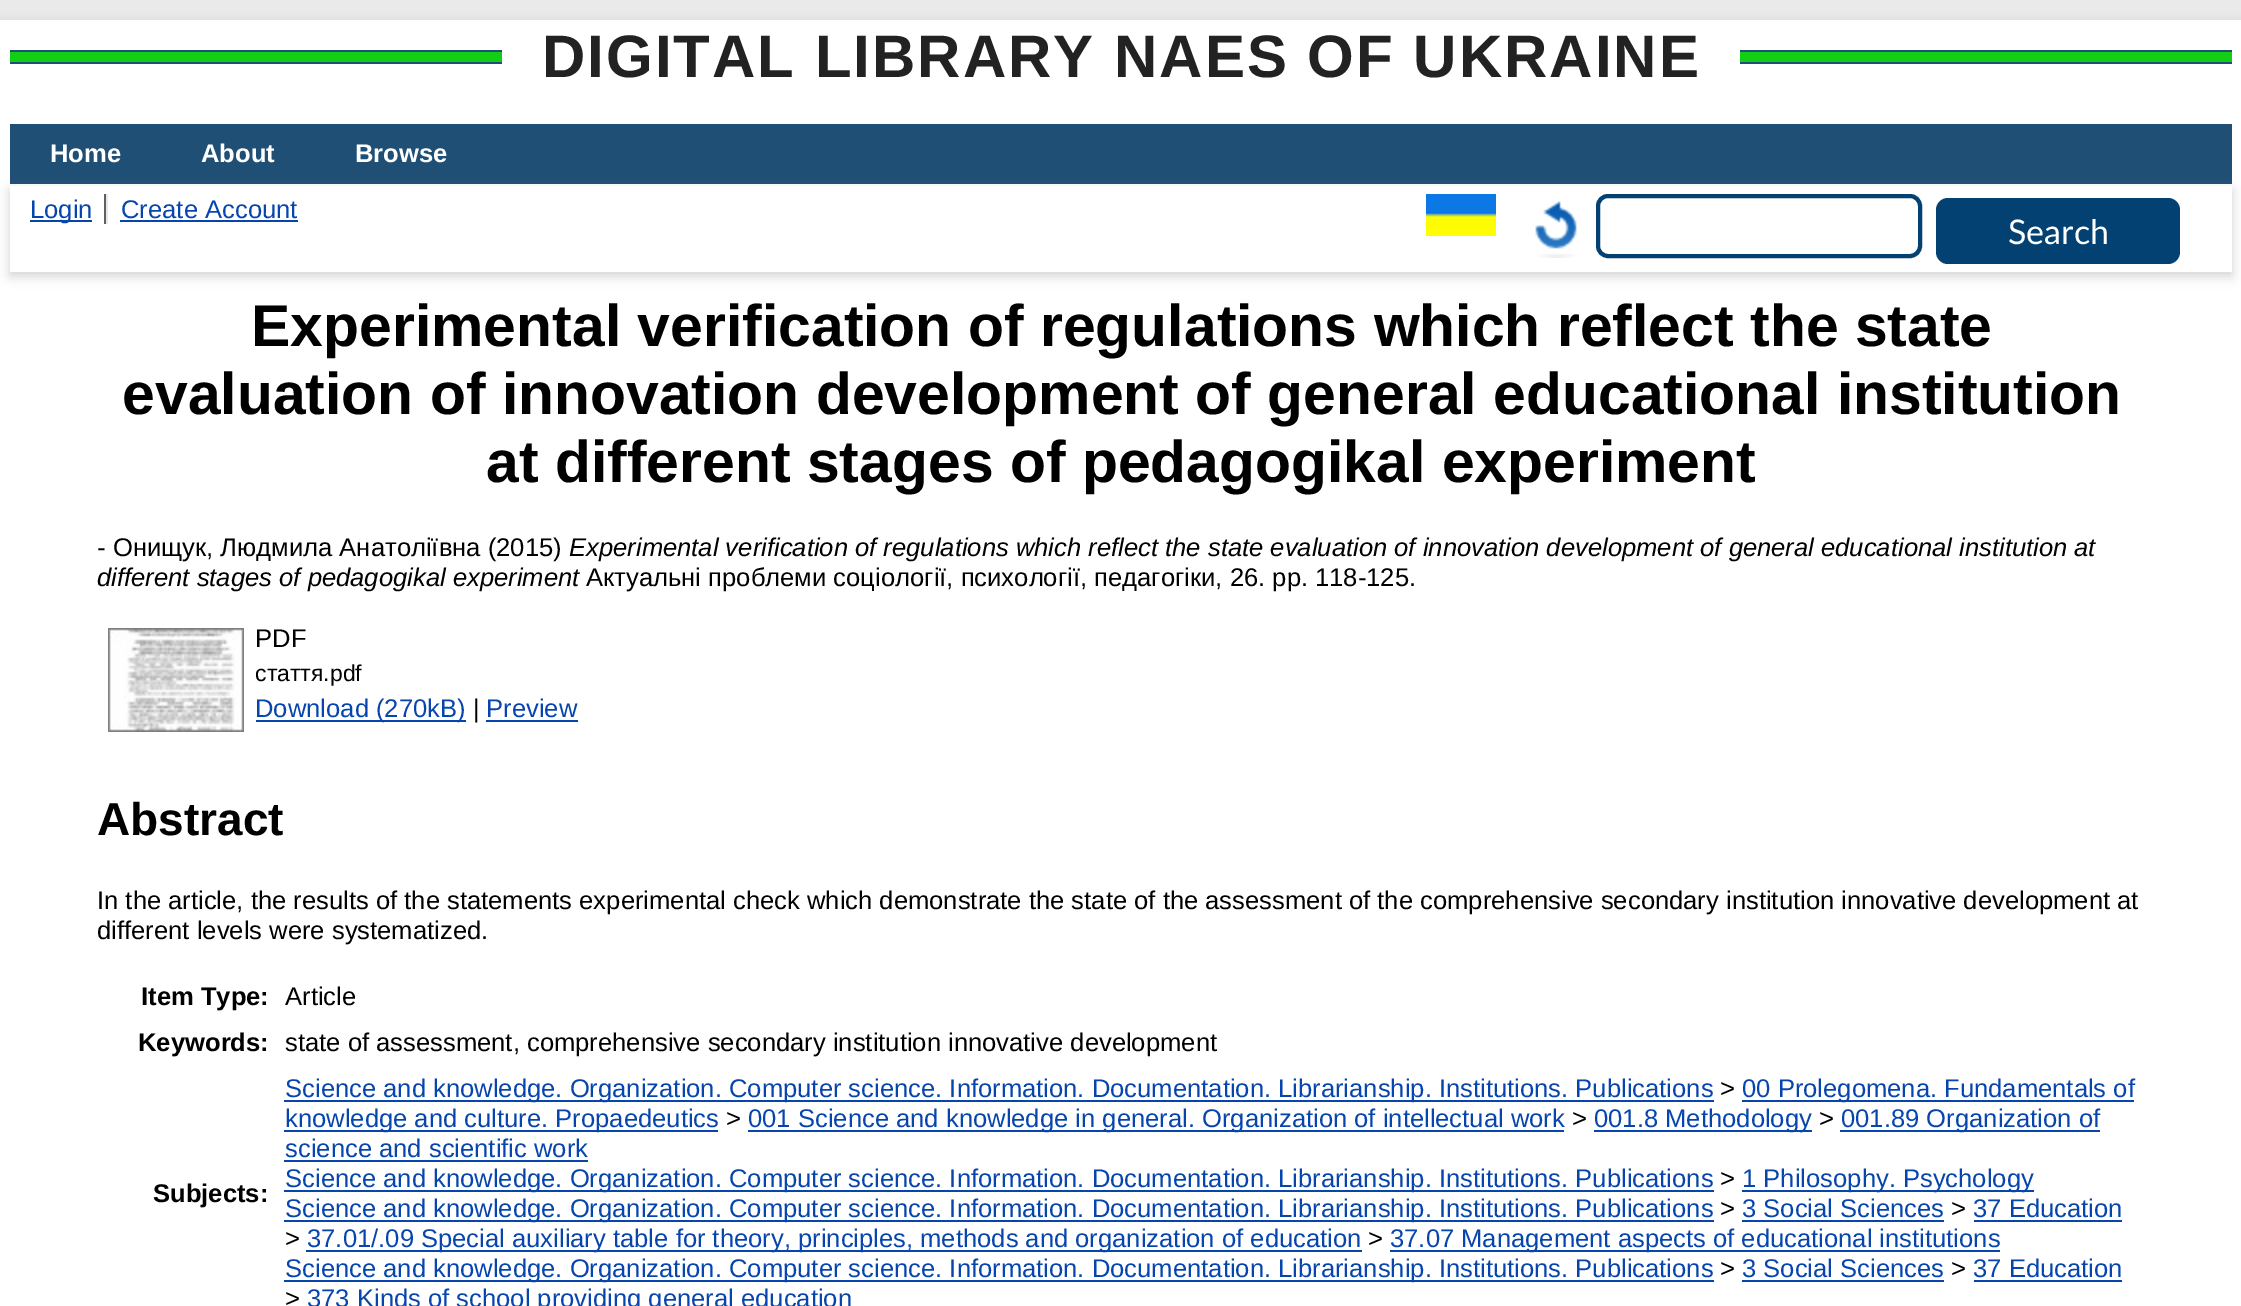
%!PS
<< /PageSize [2241 1306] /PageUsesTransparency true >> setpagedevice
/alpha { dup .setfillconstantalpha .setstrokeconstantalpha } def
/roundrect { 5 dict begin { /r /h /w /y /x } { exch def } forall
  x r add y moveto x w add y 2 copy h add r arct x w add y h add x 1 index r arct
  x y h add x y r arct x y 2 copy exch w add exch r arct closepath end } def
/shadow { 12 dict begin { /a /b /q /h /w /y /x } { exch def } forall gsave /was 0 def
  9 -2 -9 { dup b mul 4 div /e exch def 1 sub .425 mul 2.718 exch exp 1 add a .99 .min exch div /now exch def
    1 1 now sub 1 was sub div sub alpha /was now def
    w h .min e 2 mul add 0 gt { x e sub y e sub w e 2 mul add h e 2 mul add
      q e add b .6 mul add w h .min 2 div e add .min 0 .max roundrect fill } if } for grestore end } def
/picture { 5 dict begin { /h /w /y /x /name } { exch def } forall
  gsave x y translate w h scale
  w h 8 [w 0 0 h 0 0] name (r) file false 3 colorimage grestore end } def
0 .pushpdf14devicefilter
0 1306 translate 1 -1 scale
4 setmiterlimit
0.918 setgray
0 0 2241 1306 rectfill
0.392 setgray
0 24 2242 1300 0 6 0.3 shadow
1 setgray
0 20 2241 1286 rectfill
0.071 0.808 0.082 setrgbcolor
10 52 492 10 rectfill
0.125 0.31 0.463 setrgbcolor
10 50 492 2 rectfill
10 62 492 2 rectfill
/LiberationSans-Bold [60 0 0 -60 0 0] selectfont
0.133 setgray
542 77 moveto 2 0 (DIGITAL LIBRARY NAES OF UKRAINE) ashow
0.071 0.808 0.082 setrgbcolor
1740 52 492 10 rectfill
0.125 0.31 0.463 setrgbcolor
1740 50 492 2 rectfill
1740 62 492 2 rectfill
10 124 2222 60 rectfill
/LiberationSans-Bold [25.6 0 0 -25.6 0 0] selectfont
1 setgray
50 162 moveto (Home) show
201 162 moveto (About) show
355 162 moveto (Browse) show
0.392 setgray
10 190 2222 86 0 6 0.3 shadow
1 setgray
10 186 2222 86 rectfill
0.376 setgray
104 194 2 30 rectfill
0.024 0.271 0.678 setrgbcolor
30 220 62 2 rectfill
/LiberationSans-Regular [25.6 0 0 -25.6 0 0] selectfont
30 218 moveto (Login) show
0.91 setgray
106 194 2 30 rectfill
0.024 0.271 0.678 setrgbcolor
121 218 moveto (Create Account) show
120 220 178 2 rectfill
(img1.rgb) 1426 194 70 42 picture
(img2.rgb) 1535 201 42 57 picture
0.016 0.255 0.451 setrgbcolor
4 setlinewidth
1598 196 322 60 10 roundrect stroke
1936 198 244 66 12 roundrect fill
/Lato-Regular [34 0 0 -34 0 0] selectfont
1 setgray
2008 244 moveto (Search) show
/LiberationSans-Bold [58.9 0 0 -58.9 0 0] selectfont
0 setgray
251 346 moveto (Еxperimental verification of regulations which reflect the state) show
122 414 moveto (evaluation of innovation development of general educational institution) show
486 482 moveto (at different stages of pedagogikal experiment) show
/LiberationSans-Regular [25.6 0 0 -25.6 0 0] selectfont
97 556 moveto (- Онищук, Людмила Анатоліївна \(2015\)) show
/LiberationSans-Italic [25.6 0 0 -25.6 0 0] selectfont
569 556 moveto (Еxperimental verification of regulations which reflect the state evaluation of innovation development of general educational institution at) show
97 586 moveto (different stages of pedagogikal experiment) show
/LiberationSans-Regular [25.6 0 0 -25.6 0 0] selectfont
586 586 moveto (Актуальні проблеми соціології, психології, педагогіки, 26. pp. 118-125.) show
(img3.rgb) 108 628 136 104 picture
255 647 moveto (PDF) show
/LiberationSans-Regular [23 0 0 -23 0 0] selectfont
255 681 moveto (стаття.pdf) show
0.024 0.271 0.678 setrgbcolor
256 720 210 2 rectfill
/LiberationSans-Regular [25.6 0 0 -25.6 0 0] selectfont
255 717 moveto (Download \(270kB\)) show
0 setgray
473 717 moveto (|) show
0.024 0.271 0.678 setrgbcolor
486 717 moveto (Preview) show
486 720 92 2 rectfill
/LiberationSans-Bold [46 0 0 -46 0 0] selectfont
0 setgray
97 835 moveto (Abstract) show
/LiberationSans-Regular [25.6 0 0 -25.6 0 0] selectfont
97 909 moveto (In the article, the results of the statements experimental check which demonstrate the state of the assessment of the comprehensive secondary institution innovative development at) show
97 939 moveto (different levels were systematized.) show
/LiberationSans-Bold [25.6 0 0 -25.6 0 0] selectfont
141 1005 moveto (Item Type:) show
/LiberationSans-Regular [25.6 0 0 -25.6 0 0] selectfont
285 1005 moveto (Article) show
/LiberationSans-Bold [25.6 0 0 -25.6 0 0] selectfont
138 1051 moveto (Keywords:) show
/LiberationSans-Regular [25.6 0 0 -25.6 0 0] selectfont
285 1051 moveto (state of assessment, comprehensive secondary institution innovative development) show
/LiberationSans-Bold [25.6 0 0 -25.6 0 0] selectfont
153 1202 moveto (Subjects:) show
0.024 0.271 0.678 setrgbcolor
284 1100 1430 2 rectfill
/LiberationSans-Regular [25.6 0 0 -25.6 0 0] selectfont
285 1097 moveto (Science and knowledge. Organization. Computer science. Information. Documentation. Librarianship. Institutions. Publications) show
0 setgray
1720 1097 moveto (>) show
0.024 0.271 0.678 setrgbcolor
1742 1100 392 2 rectfill
1742 1097 moveto (00 Prolegomena. Fundamentals of) show
284 1130 434 2 rectfill
285 1127 moveto (knowledge and culture. Propaedeutics) show
0 setgray
726 1127 moveto (>) show
0.024 0.271 0.678 setrgbcolor
748 1130 816 2 rectfill
748 1127 moveto (001 Science and knowledge in general. Organization of intellectual work) show
0 setgray
1572 1127 moveto (>) show
0.024 0.271 0.678 setrgbcolor
1594 1130 218 2 rectfill
1594 1127 moveto (001.8 Methodology) show
0 setgray
1819 1127 moveto (>) show
0.024 0.271 0.678 setrgbcolor
1840 1130 260 2 rectfill
1841 1127 moveto (001.89 Organization of) show
285 1157 moveto (science and scientific work) show
284 1160 304 2 rectfill
284 1190 1430 2 rectfill
285 1187 moveto (Science and knowledge. Organization. Computer science. Information. Documentation. Librarianship. Institutions. Publications) show
0 setgray
1720 1187 moveto (>) show
0.024 0.271 0.678 setrgbcolor
1742 1190 292 2 rectfill
1742 1187 moveto (1 Philosophy. Psychology) show
284 1220 1430 2 rectfill
285 1217 moveto (Science and knowledge. Organization. Computer science. Information. Documentation. Librarianship. Institutions. Publications) show
0 setgray
1720 1217 moveto (>) show
0.024 0.271 0.678 setrgbcolor
1742 1217 moveto (3 Social Sciences) show
1742 1220 202 2 rectfill
0 setgray
1951 1217 moveto (>) show
0.024 0.271 0.678 setrgbcolor
1973 1217 moveto (37 Education) show
1974 1220 148 2 rectfill
0 setgray
285 1247 moveto (>) show
0.024 0.271 0.678 setrgbcolor
306 1250 1056 2 rectfill
307 1247 moveto (37.01/.09 Special auxiliary table for theory, principles, methods and organization of education) show
0 setgray
1368 1247 moveto (>) show
0.024 0.271 0.678 setrgbcolor
1390 1250 610 2 rectfill
1390 1247 moveto (37.07 Management aspects of educational institutions) show
284 1280 1430 2 rectfill
285 1277 moveto (Science and knowledge. Organization. Computer science. Information. Documentation. Librarianship. Institutions. Publications) show
0 setgray
1720 1277 moveto (>) show
0.024 0.271 0.678 setrgbcolor
1742 1277 moveto (3 Social Sciences) show
1742 1280 202 2 rectfill
0 setgray
1951 1277 moveto (>) show
0.024 0.271 0.678 setrgbcolor
1973 1277 moveto (37 Education) show
1974 1280 148 2 rectfill
0 setgray
285 1307 moveto (>) show
0.024 0.271 0.678 setrgbcolor
307 1307 moveto (373 Kinds of school providing general education) show
.poppdf14devicefilter showpage
